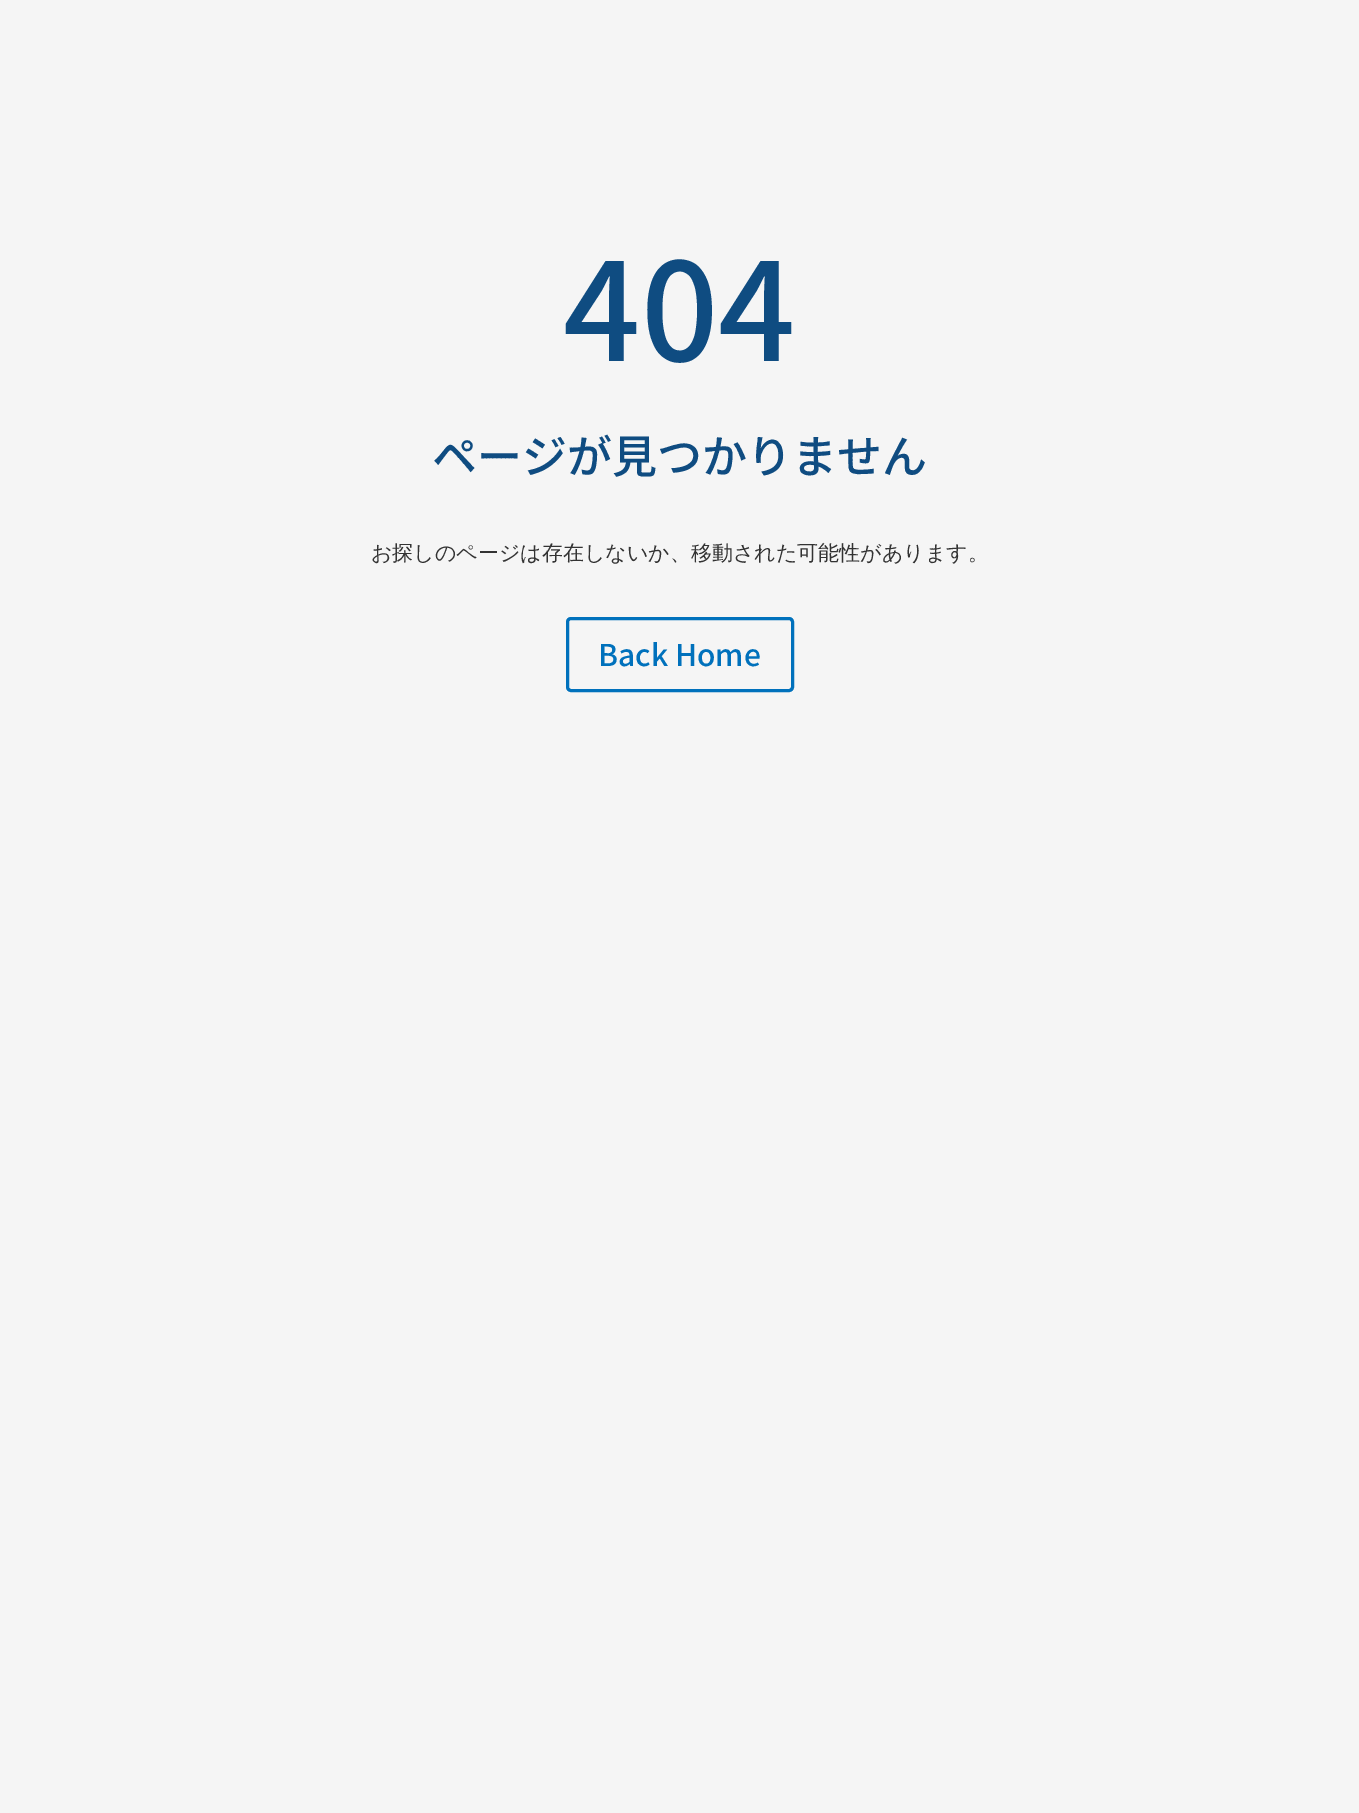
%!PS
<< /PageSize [1359 1813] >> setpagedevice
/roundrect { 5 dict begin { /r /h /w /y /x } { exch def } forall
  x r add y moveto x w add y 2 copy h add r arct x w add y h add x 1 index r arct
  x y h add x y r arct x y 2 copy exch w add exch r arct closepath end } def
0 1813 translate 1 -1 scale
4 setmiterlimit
0.961 setgray
0 0 1359 1813 rectfill
/NotoSansJP-Medium [136 0 0 -136 0 0] selectfont
0.059 0.298 0.506 setrgbcolor
563 361 moveto (404) show
/NotoSansJP-Medium [45 0 0 -45 0 0] selectfont
432 473 moveto (ページが見つかりません) show
/WenQuanYiZenHei-Medium [21 0 0 -21 0 0] selectfont
0.2 setgray
371 560 moveto (お探しのページは存在しないか、移動された可能性があります。) show
0 0.443 0.737 setrgbcolor
3 setlinewidth
567.5 618.5 225 72 3.5 roundrect stroke
/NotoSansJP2-Medium [30 0 0 -30 0 0] selectfont
598 666 moveto (Back Home) show
showpage
